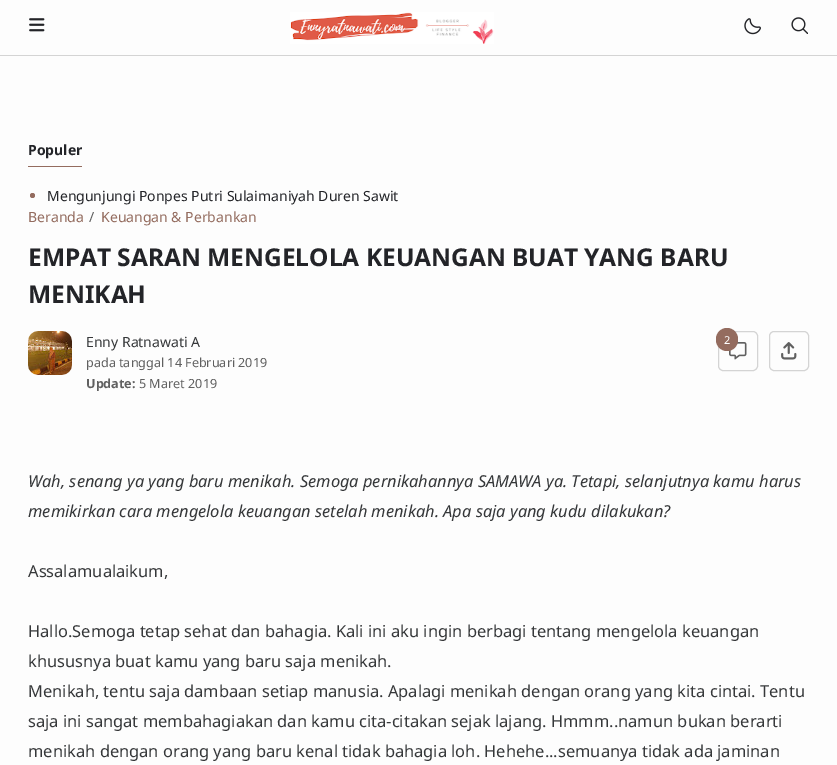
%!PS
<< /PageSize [837 765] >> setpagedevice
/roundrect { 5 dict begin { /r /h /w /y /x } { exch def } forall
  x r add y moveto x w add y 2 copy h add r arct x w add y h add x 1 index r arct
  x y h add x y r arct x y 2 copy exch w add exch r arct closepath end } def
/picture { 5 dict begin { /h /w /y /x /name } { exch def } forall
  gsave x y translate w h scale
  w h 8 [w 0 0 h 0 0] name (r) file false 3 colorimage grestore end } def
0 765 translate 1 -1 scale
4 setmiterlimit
0.992 setgray
0 0 837 765 rectfill
0.831 setgray
0 55 837 1 rectfill
(img1.rgb) 29 18 16 14 picture
(img2.rgb) 290 12 204 32 picture
(img3.rgb) 744 18 17 17 picture
(img4.rgb) 791 17 17 17 picture
0.58 0.424 0.373 setrgbcolor
28 166 54 1 rectfill
/NotoSans-Bold [14 0 0 -14 0 0] selectfont
0.137 0.141 0.157 setrgbcolor
28 155 moveto (Populer) show
0.58 0.424 0.373 setrgbcolor
newpath 32.5 195.5 2.5 0 360 arc closepath fill
/NotoSans-Regular [14 0 0 -14 0 0] selectfont
0.137 0.141 0.157 setrgbcolor
47 201 moveto (Mengunjungi Ponpes Putri Sulaimaniyah Duren Sawit) show
0.58 0.424 0.373 setrgbcolor
28 222 moveto (Beranda) show
0.376 setgray
89 222 moveto (/) show
0.58 0.424 0.373 setrgbcolor
101 222 moveto (Keuangan & Perbankan) show
/NotoSans-Bold [24.5 0 0 -24.5 0 0] selectfont
0.137 0.141 0.157 setrgbcolor
28 266 moveto (EMPAT SARAN MENGELOLA KEUANGAN BUAT YANG BARU) show
28 303 moveto (MENIKAH) show
(img5.rgb) 28 331 44 44 picture
/NotoSans-Regular [14 0 0 -14 0 0] selectfont
0.212 0.22 0.227 setrgbcolor
86 347 moveto (Enny Ratnawati A) show
/NotoSans-Regular [12.6 0 0 -12.6 0 0] selectfont
0.376 setgray
86 367 moveto (pada tanggal 14 Februari 2019) show
/NotoSans-Bold [12.6 0 0 -12.6 0 0] selectfont
86 388 moveto (Update:) show
/NotoSans-Regular [12.6 0 0 -12.6 0 0] selectfont
139 388 moveto (5 Maret 2019) show
0.831 setgray
718.5 331.5 39 39 4.5 roundrect stroke
(img6.rgb) 729 342 18 18 picture
0.58 0.424 0.373 setrgbcolor
716 328 22 23 11 roundrect fill
/NotoSans-Regular [11 0 0 -11 0 0] selectfont
1 setgray
724 344 moveto (2) show
0.831 setgray
769.5 331.5 39 39 4.5 roundrect stroke
(img7.rgb) 781 342 16 18 picture
/NotoSans-Italic [16.45 0 0 -16.45 0 0] selectfont
0.212 0.22 0.227 setrgbcolor
28 487 moveto (Wah, senang ya yang baru menikah. Semoga pernikahannya SAMAWA ya. Tetapi, selanjutnya kamu harus) show
28 517 moveto (memikirkan cara mengelola keuangan setelah menikah. Apa saja yang kudu dilakukan?) show
/NotoSans-Regular [16.45 0 0 -16.45 0 0] selectfont
28 577 moveto (Assalamualaikum,) show
28 637 moveto (Hallo.Semoga tetap sehat dan bahagia. Kali ini aku ingin berbagi tentang mengelola keuangan) show
28 667 moveto (khususnya buat kamu yang baru saja menikah.) show
28 697 moveto (Menikah, tentu saja dambaan setiap manusia. Apalagi menikah dengan orang yang kita cintai. Tentu) show
28 727 moveto (saja ini sangat membahagiakan dan kamu cita-citakan sejak lajang. Hmmm..namun bukan berarti) show
28 757 moveto (menikah dengan orang yang baru kenal tidak bahagia loh. Hehehe...semuanya tidak ada jaminan) show
showpage
